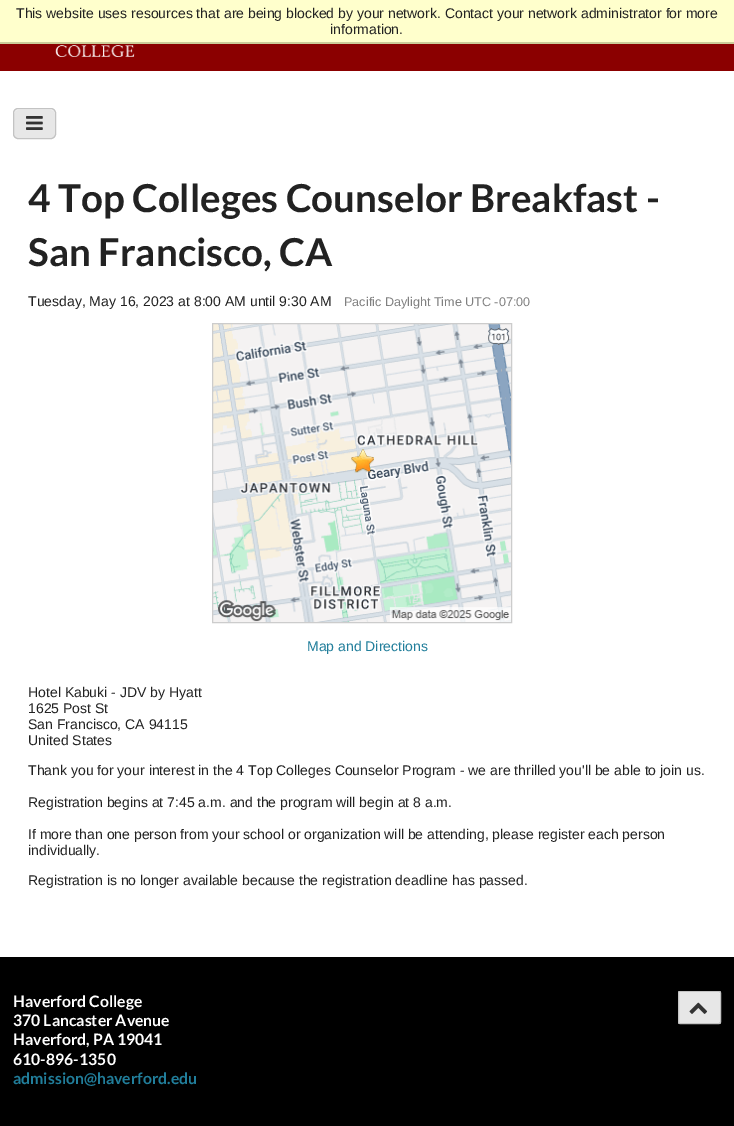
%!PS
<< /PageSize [734 1126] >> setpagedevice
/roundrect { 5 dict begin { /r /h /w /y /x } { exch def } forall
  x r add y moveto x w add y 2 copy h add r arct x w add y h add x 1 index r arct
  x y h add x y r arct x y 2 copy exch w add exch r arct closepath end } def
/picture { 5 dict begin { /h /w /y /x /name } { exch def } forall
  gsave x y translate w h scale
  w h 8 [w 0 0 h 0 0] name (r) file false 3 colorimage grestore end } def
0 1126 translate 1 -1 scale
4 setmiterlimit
1 setgray
0 0 734 1126 rectfill
1 1 0.8 setrgbcolor
0 0 734 42 rectfill
0.8 0.8 0.6 setrgbcolor
0 42 734 2 rectfill
/LiberationSans-Regular [14 0 0 -14 0 0] selectfont
0.133 setgray
16 18 moveto (This website uses resources that are being blocked by your network. Contact your network administrator for more) show
330 34 moveto (information.) show
0.545 0 0 setrgbcolor
0 44 734 27 rectfill
(img1.rgb) 55 45 80 12 picture
0.906 setgray
13 108 43 31 5 roundrect fill
0.953 setgray
newpath 18 110 moveto 51 110 lineto 53 110 55 112 55 114 curveto 55 108 50 109 46 109 curveto 24 109 lineto 19 109 14 108 14 114 curveto 14 112 16 110 18 110 curveto closepath fill
0.765 setgray
13.5 108.5 42 30 4.5 roundrect stroke
(img2.rgb) 26 116 17 14 picture
/Lato-Bold [38.5 0 0 -38.5 0 0] selectfont
0.133 setgray
28 212 moveto (4 Top Colleges Counselor Breakfast -) show
28 266 moveto (San Francisco, CA) show
/LiberationSans-Regular [14 0 0 -14 0 0] selectfont
28 306 moveto (Tuesday, May 16, 2023 at 8:00 AM until 9:30 AM) show
/LiberationSans-Regular [12.6 0 0 -12.6 0 0] selectfont
0.502 setgray
344 306 moveto (Pacific Daylight Time UTC -07:00) show
(img3.rgb) 213 324 298 298 picture
0.8 setgray
212.5 323.5 299 299 rectstroke
/LiberationSans-Regular [14 0 0 -14 0 0] selectfont
0.129 0.494 0.608 setrgbcolor
307 651 moveto (Map and Directions) show
0.133 setgray
28 697 moveto (Hotel Kabuki - JDV by Hyatt) show
28 713 moveto (1625 Post St) show
28 729 moveto (San Francisco, CA 94115) show
28 745 moveto (United States) show
28 775 moveto (Thank you for your interest in the 4 Top Colleges Counselor Program - we are thrilled you'll be able to join us.) show
28 807 moveto (Registration begins at 7:45 a.m. and the program will begin at 8 a.m.) show
28 839 moveto (If more than one person from your school or organization will be attending, please register each person) show
28 855 moveto (individually.) show
28 885 moveto (Registration is no longer available because the registration deadline has passed.) show
0 setgray
0 957 734 169 rectfill
/Lato-Bold [15.75 0 0 -15.75 0 0] selectfont
1 setgray
13 1007 moveto (Haverford College) show
13 1026 moveto (370 Lancaster Avenue) show
13 1045 moveto (Haverford, PA 19041) show
13 1065 moveto (610-896-1350) show
0.129 0.494 0.608 setrgbcolor
13 1084 moveto (admission@haverford.edu) show
0.906 setgray
678 991 43 33 2 roundrect fill
0.953 setgray
newpath 680 993 moveto 719 993 lineto 720 993 720 993 720 994 curveto 720 990 716 992 712 992 curveto 686 992 lineto 683 992 679 990 679 994 curveto 679 993 679 993 680 993 curveto closepath fill
0.765 setgray
678.5 991.5 42 32 1.5 roundrect stroke
(img4.rgb) 689 1002 19 12 picture
showpage
